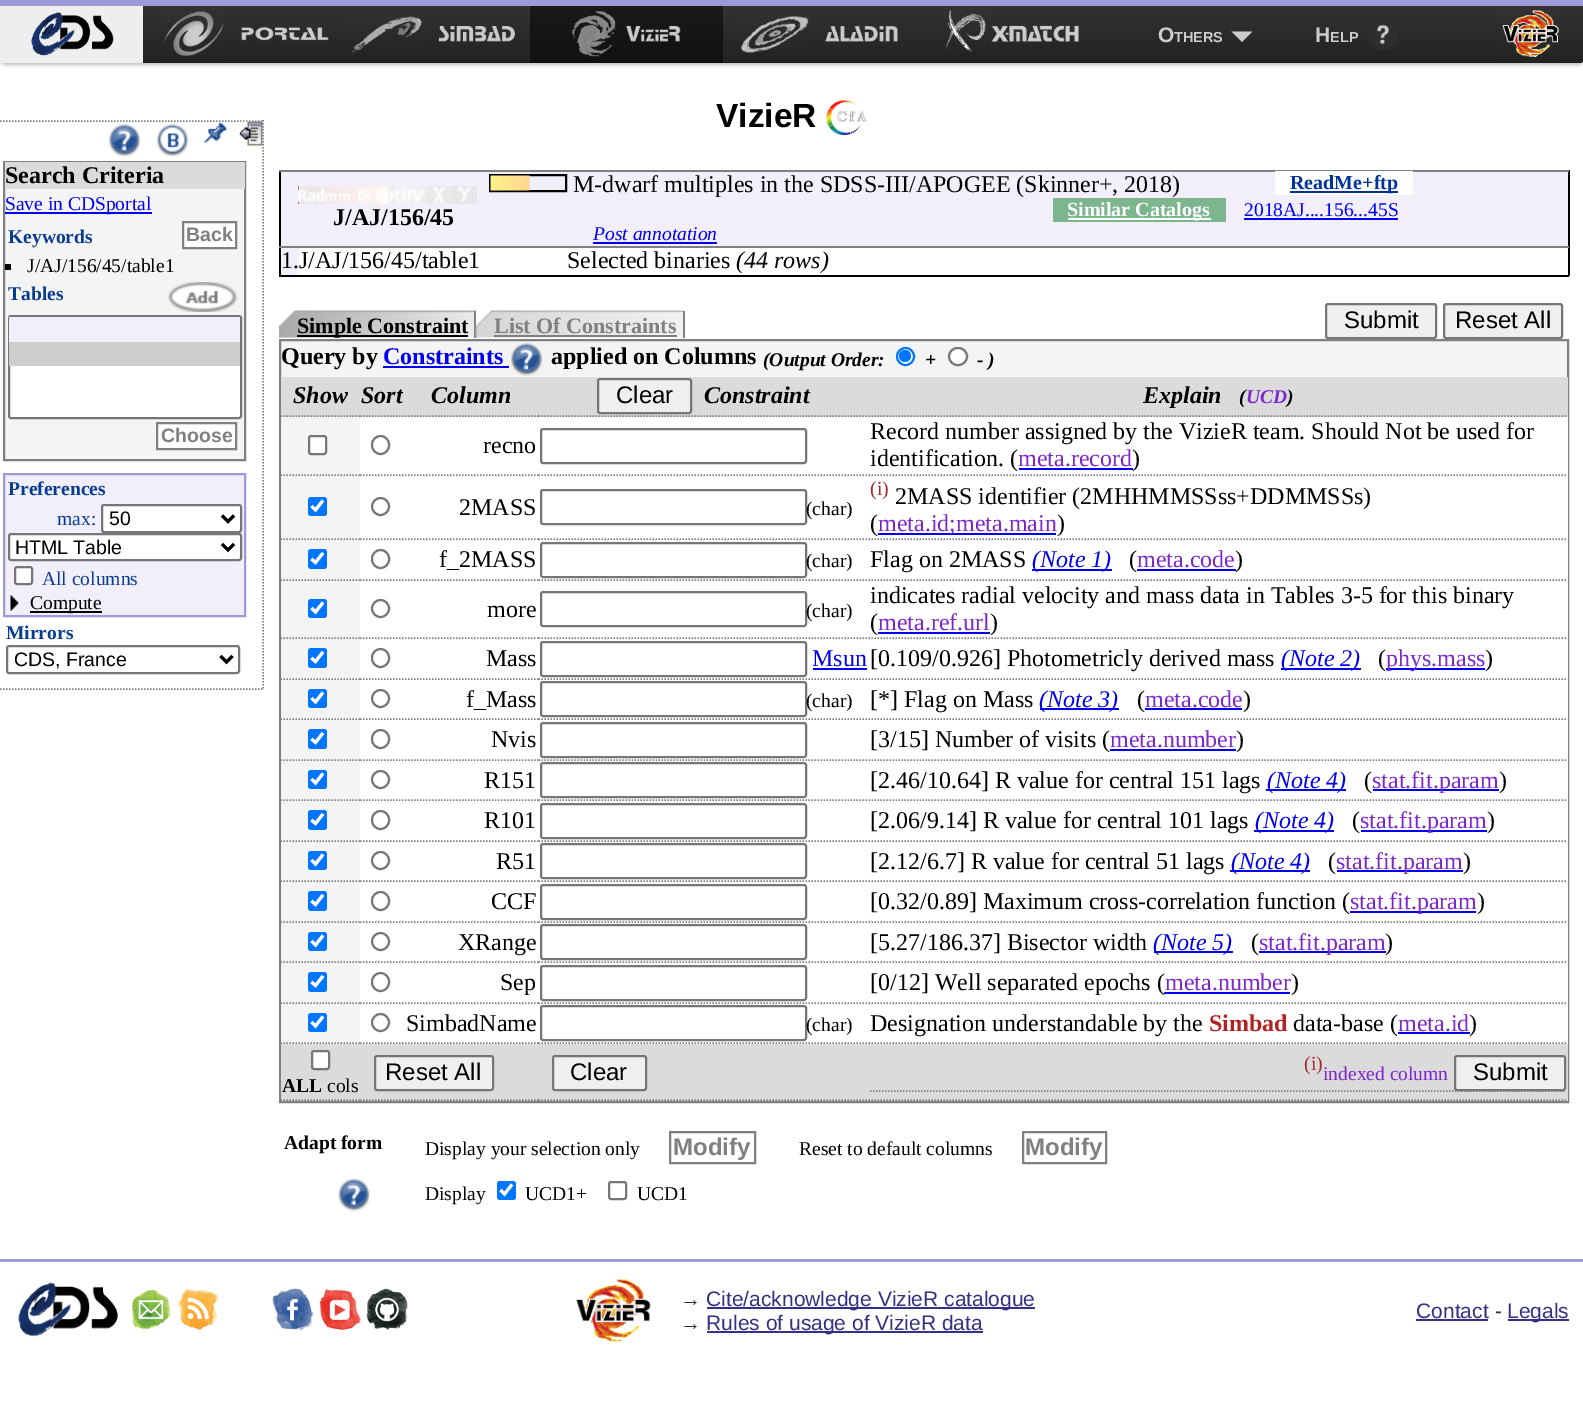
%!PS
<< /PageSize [1583 1421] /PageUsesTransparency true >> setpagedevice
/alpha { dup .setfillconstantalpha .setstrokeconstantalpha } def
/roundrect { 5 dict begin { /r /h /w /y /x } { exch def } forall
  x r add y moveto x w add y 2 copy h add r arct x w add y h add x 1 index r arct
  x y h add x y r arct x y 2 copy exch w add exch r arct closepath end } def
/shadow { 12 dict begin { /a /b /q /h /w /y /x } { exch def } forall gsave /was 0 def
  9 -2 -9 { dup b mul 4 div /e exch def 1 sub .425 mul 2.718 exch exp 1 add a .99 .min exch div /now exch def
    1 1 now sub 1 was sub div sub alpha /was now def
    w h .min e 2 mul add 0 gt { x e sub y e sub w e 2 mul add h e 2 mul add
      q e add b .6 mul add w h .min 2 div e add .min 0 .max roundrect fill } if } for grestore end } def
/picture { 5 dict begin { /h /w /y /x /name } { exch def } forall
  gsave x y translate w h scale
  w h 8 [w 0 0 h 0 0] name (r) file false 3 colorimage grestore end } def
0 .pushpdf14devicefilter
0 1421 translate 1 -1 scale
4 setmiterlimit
1 setgray
0 0 1583 1421 rectfill
0 setgray
0 2 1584 63 6 2 0.25 shadow
gsave newpath 0 6 moveto 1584 6 lineto 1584 57 lineto 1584 60.5 1581.5 63 1578 63 curveto 6 63 lineto 2.5 63 0 60.5 0 57 curveto closepath clip newpath
<< /ShadingType 2 /ColorSpace /DeviceRGB /Coords [792 6 792 63] /Extend [true true] /Function << /FunctionType 2 /Domain [0 1] /C0 [0.2 0.2 0.2] /C1 [0.133 0.133 0.133] /N 1 >> >> shfill grestore
0.1 alpha
newpath 0 55 moveto 0 59 1 63 6 63 curveto 1578 63 lineto 1583 63 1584 59 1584 55 curveto 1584 59 1581 62 1578 62 curveto 6 62 lineto 3 62 0 59 0 55 curveto closepath fill
1 alpha
0.612 0.608 0.835 setrgbcolor
0 0 1583 6 rectfill
0.933 setgray
0 6 143 57 rectfill
(img1.rgb) 31 12 83 44 picture
(img2.rgb) 163 11 61 46 picture
(img3.rgb) 241 26 88 15 picture
(img4.rgb) 351 16 71 37 picture
(img5.rgb) 438 26 77 16 picture
0.5 alpha
0 setgray
530 6 193 57 rectfill
1 alpha
(img6.rgb) 572 10 44 47 picture
(img7.rgb) 626 25 55 17 picture
(img8.rgb) 740 16 69 37 picture
(img9.rgb) 825 26 73 16 picture
(img10.rgb) 946 10 40 42 picture
(img11.rgb) 991 25 88 17 picture
/LiberationSans-Bold [21 0 0 -21 0 0] selectfont
0.8 setgray
1158 42 moveto (O) show
/LiberationSans-Bold [14.5 0 0 -14.5 0 0] selectfont
1174 42 moveto (THERS) show
newpath 1231.5 31.5 moveto 1252.5 31.5 lineto 1242 42 lineto closepath fill
/LiberationSans-Bold [21 0 0 -21 0 0] selectfont
1315 42 moveto (H) show
/LiberationSans-Bold [14.5 0 0 -14.5 0 0] selectfont
1330 42 moveto (ELP) show
(img12.rgb) 1368 24 30 26 picture
(img13.rgb) 1502 9 57 48 picture
/LiberationSans-Bold [33.5 0 0 -33.5 0 0] selectfont
0 setgray
716 127 moveto (VizieR) show
(img14.rgb) 826 100 41 35 picture
0.502 setgray
1.5 setlinewidth
[1.5 1.5] 0 setdash
newpath 0 121 moveto 264 121 lineto stroke
newpath 263 120 moveto 263 690 lineto stroke
newpath 0 689 moveto 264 689 lineto stroke
(img15.rgb) 109 124 32 33 picture
(img16.rgb) 157 124 32 33 picture
(img17.rgb) 203 122 24 21 picture
(img18.rgb) 239 121 24 25 picture
0.957 setgray
5 189 239 270 rectfill
0.502 setgray
2 setlinewidth
[] 0 setdash
4 162 241 298 rectstroke
0.859 setgray
5 162 240 27 rectfill
/LiberationSerif-Bold [24 0 0 -24 0 0] selectfont
0 setgray
5 183 moveto (Search Criteria) show
0 0 0.933 setrgbcolor
5 212 147 2 rectfill
/LiberationSerif-Regular [19.5 0 0 -19.5 0 0] selectfont
5 210 moveto (Save in CDSportal) show
/LiberationSerif-Bold [19.5 0 0 -19.5 0 0] selectfont
0.031 0.235 0.569 setrgbcolor
8 243 moveto (Keywords) show
1 setgray
newpath 183 222 moveto 236 222 lineto 236 248 lineto 183 248 lineto closepath gsave fill grestore
0.502 setgray
stroke
/LiberationSans-Bold [19.5 0 0 -19.5 0 0] selectfont
186 241 moveto (Back) show
0 setgray
5 264 6 6 rectfill
/LiberationSerif-Regular [19.5 0 0 -19.5 0 0] selectfont
27 272 moveto (J/AJ/156/45/table1) show
/LiberationSerif-Bold [19.5 0 0 -19.5 0 0] selectfont
0.031 0.235 0.569 setrgbcolor
8 300 moveto (Tables) show
(img19.rgb) 167 282 71 30 picture
1 setgray
9 316 232 102 2 roundrect gsave fill grestore
0.463 setgray
stroke
0.949 0.937 0.984 setrgbcolor
newpath 10.5 317 moveto 238.5 317 lineto 239.5 317 240 317.5 240 318.5 curveto 240 342 lineto 9 342 lineto 9 318.5 lineto 9 317.5 9.5 317 10.5 317 curveto closepath fill
0.808 setgray
9 342 231 24 rectfill
1 setgray
newpath 157 423 moveto 236 423 lineto 236 449 lineto 157 449 lineto closepath gsave fill grestore
0.502 setgray
stroke
/LiberationSans-Bold [19.5 0 0 -19.5 0 0] selectfont
161 442 moveto (Choose) show
0.949 0.937 0.984 setrgbcolor
newpath 4 474 moveto 245 474 lineto 245 616 lineto 4 616 lineto closepath gsave fill grestore
0.612 0.608 0.835 setrgbcolor
stroke
/LiberationSerif-Bold [19.5 0 0 -19.5 0 0] selectfont
0.031 0.235 0.569 setrgbcolor
8 495 moveto (Preferences) show
/LiberationSerif-Regular [19.5 0 0 -19.5 0 0] selectfont
57 525 moveto (max:) show
1 setgray
102 505 139 27 2 roundrect gsave fill grestore
0.463 setgray
stroke
0 setgray
3 setlinewidth
newpath 222 515.5 moveto 228 521.5 lineto 234 515.5 lineto stroke
/LiberationSans-Regular [19.5 0 0 -19.5 0 0] selectfont
109 525 moveto (50) show
1 setgray
9 534 232 26 2 roundrect gsave fill grestore
0.463 setgray
2 setlinewidth
stroke
0 setgray
3 setlinewidth
newpath 222 544 moveto 228 550 lineto 234 544 lineto stroke
15 554 moveto (HTML Table) show
1 setgray
15 567 17 17 2 roundrect gsave fill grestore
0.463 setgray
2 setlinewidth
stroke
/LiberationSerif-Regular [19.5 0 0 -19.5 0 0] selectfont
0.031 0.235 0.569 setrgbcolor
42 585 moveto (All columns) show
(img20.rgb) 10 595 9 16 picture
0 setgray
30 611 72 2 rectfill
30 609 moveto (Compute) show
/LiberationSerif-Bold [19.5 0 0 -19.5 0 0] selectfont
0.031 0.235 0.569 setrgbcolor
6 639 moveto (Mirrors) show
0.463 setgray
7 646 232 27 2 roundrect stroke
0 setgray
3 setlinewidth
newpath 220.5 656 moveto 226.5 662 lineto 232.5 656 lineto stroke
/LiberationSans-Regular [19.5 0 0 -19.5 0 0] selectfont
14 666 moveto (CDS, France) show
1568 170 2 106 rectfill
279 275 1290 2 rectfill
279 170 2 106 rectfill
0.949 0.937 0.984 setrgbcolor
567 170 6 76 rectfill
0.502 setgray
279 170 1290 2 rectfill
0.949 0.937 0.984 setrgbcolor
281 172 286 74 rectfill
(img21.rgb) 298 186 179 18 picture
0.9 alpha
1 setgray
299 186 25 18 rectfill
324 186 26 18 rectfill
350 186 25 18 rectfill
375 186 26 18 rectfill
401 186 25 18 rectfill
426 186 26 18 rectfill
452 186 25 18 rectfill
/LiberationSerif-Bold [24 0 0 -24 0 0] selectfont
1 alpha
0 setgray
333 225 moveto (J/AJ/156/45) show
2 setlinewidth
490 175 76 16 rectstroke
(img22.rgb) 490 175 40 16 picture
0.949 0.937 0.984 setrgbcolor
573 172 995 74 rectfill
/LiberationSerif-Regular [24 0 0 -24 0 0] selectfont
0 setgray
573 192 moveto (M-dwarf multiples in the SDSS-III/APOGEE \(Skinner+, 2018\)) show
1 setgray
1275 171 138 24 rectfill
0 0.2 0.6 setrgbcolor
1290 191 108 2 rectfill
/LiberationSerif-Bold [20 0 0 -20 0 0] selectfont
1290 189 moveto (ReadMe+ftp) show
0.486 0.714 0.557 setrgbcolor
1053 198 173 24 rectfill
1 setgray
1068 218 143 2 rectfill
1067 216 moveto (Similar Catalogs) show
/LiberationSerif-Regular [19.5 0 0 -19.5 0 0] selectfont
0 0 1 setrgbcolor
1244 216 moveto (2018AJ....156...45S) show
1244 218 154 2 rectfill
/LiberationSerif-Italic [19.5 0 0 -19.5 0 0] selectfont
0 0 0.933 setrgbcolor
593 240 moveto (Post annotation) show
593 242 124 2 rectfill
0.949 0.937 0.984 setrgbcolor
281 248 18 27 rectfill
/LiberationSerif-Regular [24 0 0 -24 0 0] selectfont
0 setgray
281 268 moveto (1.J/AJ/156/45/table1) show
0.502 setgray
279 246 1290 2 rectfill
0 setgray
567 268 moveto (Selected binaries) show
/LiberationSerif-Italic [24 0 0 -24 0 0] selectfont
736 268 moveto (\(44 rows\)) show
(img23.rgb) 279 310 197 28 picture
0.502 setgray
474 311 2 27 rectfill
(img24.rgb) 475 310 209 28 picture
0 setgray
297 335 171 2 rectfill
/LiberationSerif-Bold [22 0 0 -22 0 0] selectfont
297 333 moveto (Simple Constraint) show
0.502 setgray
494 333 moveto (List Of Constraints) show
683 311 2 27 rectfill
494 335 183 2 rectfill
0.937 setgray
1326 304 110 34 2 roundrect gsave fill grestore
0.463 setgray
stroke
/LiberationSans-Regular [24 0 0 -24 0 0] selectfont
0 setgray
1344 328 moveto (Submit) show
0.937 setgray
1444 304 118 34 2 roundrect gsave fill grestore
0.463 setgray
stroke
0 setgray
1455 328 moveto (Reset All) show
0.957 setgray
281 341 1286 36 rectfill
0.502 setgray
280 340 1288 762 rectstroke
/LiberationSerif-Bold [24 0 0 -24 0 0] selectfont
0 setgray
281 364 moveto (Query by) show
0 0 0.933 setrgbcolor
383 364 moveto (Constraints) show
383 366 126 2 rectfill
(img25.rgb) 511 343 32 33 picture
0 setgray
551 364 moveto (applied on Columns) show
/LiberationSerif-BoldItalic [19.5 0 0 -19.5 0 0] selectfont
763 366 moveto (\(Output Order:) show
1 setgray
newpath 905.5 356.5 8.5 0 360 arc closepath gsave fill grestore
0 0.459 1 setrgbcolor
stroke
newpath 905 356 6 0 360 arc closepath fill
0 setgray
925 366 moveto (+) show
1 setgray
949 348 18 17 8.5 roundrect gsave fill grestore
0.463 setgray
stroke
0 setgray
977 366 moveto (- \)) show
1 setgray
1567 417 1 627 rectfill
0.859 setgray
281 377 1287 40 rectfill
0.502 setgray
1.5 setlinewidth
[1.5 1.5] 0 setdash
newpath 280.5 416 moveto 360 416 lineto stroke
/LiberationSerif-BoldItalic [24 0 0 -24 0 0] selectfont
0 setgray
293 403 moveto (Show) show
0.502 setgray
newpath 360 416 moveto 405 416 lineto stroke
0 setgray
361 403 moveto (Sort) show
0.502 setgray
newpath 405 416 moveto 538.5 416 lineto stroke
0 setgray
431 403 moveto (Column) show
0.502 setgray
newpath 538.5 416 moveto 868.5 416 lineto stroke
0.937 setgray
598 379 93 34 2 roundrect gsave fill grestore
0.463 setgray
2 setlinewidth
[] 0 setdash
stroke
/LiberationSans-Regular [24 0 0 -24 0 0] selectfont
0 setgray
616 403 moveto (Clear) show
/LiberationSerif-BoldItalic [24 0 0 -24 0 0] selectfont
704 403 moveto (Constraint) show
0.502 setgray
1.5 setlinewidth
[1.5 1.5] 0 setdash
newpath 868.5 416 moveto 1567.5 416 lineto stroke
0 setgray
1143 403 moveto (Explain) show
/LiberationSerif-BoldItalic [19.5 0 0 -19.5 0 0] selectfont
1239 403 moveto (\() show
0.49 0.149 0.804 setrgbcolor
1246 403 moveto (UCD) show
0 setgray
1287 403 moveto (\)) show
0.957 setgray
281 417 79 627 rectfill
0.502 setgray
newpath 280.5 475 moveto 360 475 lineto stroke
1 setgray
309 436 17 18 2 roundrect gsave fill grestore
0.463 setgray
2 setlinewidth
[] 0 setdash
stroke
0.502 setgray
1.5 setlinewidth
[1.5 1.5] 0 setdash
newpath 360 475 moveto 405 475 lineto stroke
0.463 setgray
2 setlinewidth
[] 0 setdash
372 436 17 18 8.5 roundrect stroke
0.502 setgray
1.5 setlinewidth
[1.5 1.5] 0 setdash
newpath 405 475 moveto 538.5 475 lineto stroke
/LiberationSerif-Regular [24 0 0 -24 0 0] selectfont
0 setgray
483 453 moveto (recno) show
0.502 setgray
newpath 538.5 475 moveto 868.5 475 lineto stroke
0.463 setgray
2 setlinewidth
[] 0 setdash
541 429 265 34 2 roundrect stroke
0.502 setgray
1.5 setlinewidth
[1.5 1.5] 0 setdash
newpath 868.5 475 moveto 1567.5 475 lineto stroke
0 setgray
870 439 moveto (Record number assigned by the VizieR team. Should Not be used for) show
870 466 moveto (identification. \() show
0.49 0.149 0.804 setrgbcolor
1018 466 moveto (meta.record) show
0 0 0.933 setrgbcolor
1019 468 114 2 rectfill
0 setgray
1132 466 moveto (\)) show
0.502 setgray
newpath 280.5 539 moveto 360 539 lineto stroke
0 0.459 1 setrgbcolor
308 497 19 19 3 roundrect fill
1 setgray
3.1 setlinewidth
[] 0 setdash
newpath 311.5 506 moveto 315.5 510 lineto 323 500.5 lineto stroke
0.502 setgray
1.5 setlinewidth
[1.5 1.5] 0 setdash
newpath 360 539 moveto 405 539 lineto stroke
0.463 setgray
2 setlinewidth
[] 0 setdash
newpath 380.5 506.5 8.5 0 360 arc closepath stroke
0.502 setgray
1.5 setlinewidth
[1.5 1.5] 0 setdash
newpath 405 539 moveto 538.5 539 lineto stroke
0 setgray
459 515 moveto (2MASS) show
0.502 setgray
newpath 538.5 539 moveto 868.5 539 lineto stroke
0.463 setgray
2 setlinewidth
[] 0 setdash
541 490 265 34 2 roundrect stroke
/LiberationSerif-Regular [19.5 0 0 -19.5 0 0] selectfont
0 setgray
806 515 moveto (\(char\)) show
0.502 setgray
1.5 setlinewidth
[1.5 1.5] 0 setdash
newpath 868.5 539 moveto 1567.5 539 lineto stroke
/LiberationSerif-Regular [20 0 0 -20 0 0] selectfont
0.647 0.165 0.165 setrgbcolor
870 495 moveto (\(i\)) show
/LiberationSerif-Regular [24 0 0 -24 0 0] selectfont
0 setgray
895 504 moveto (2MASS identifier \(2MHHMMSSss+DDMMSSs\)) show
870 531 moveto (\() show
0 0 0.933 setrgbcolor
878 533 178 2 rectfill
0.49 0.149 0.804 setrgbcolor
878 531 moveto (meta.id;meta.main) show
0 setgray
1057 531 moveto (\)) show
0.502 setgray
newpath 280.5 580 moveto 360 580 lineto stroke
0 0.459 1 setrgbcolor
308 549 19 20 3 roundrect fill
1 setgray
3.1 setlinewidth
[] 0 setdash
newpath 311.5 559 moveto 315.5 562.5 lineto 323 553 lineto stroke
0.502 setgray
1.5 setlinewidth
[1.5 1.5] 0 setdash
newpath 360 580 moveto 405 580 lineto stroke
0.463 setgray
2 setlinewidth
[] 0 setdash
372 550 17 18 8.5 roundrect stroke
0.502 setgray
1.5 setlinewidth
[1.5 1.5] 0 setdash
newpath 405 580 moveto 538.5 580 lineto stroke
0 setgray
439 567 moveto (f_2MASS) show
0.502 setgray
newpath 538.5 580 moveto 868.5 580 lineto stroke
0.463 setgray
2 setlinewidth
[] 0 setdash
541 543 265 34 2 roundrect stroke
/LiberationSerif-Regular [19.5 0 0 -19.5 0 0] selectfont
0 setgray
806 567 moveto (\(char\)) show
0.502 setgray
1.5 setlinewidth
[1.5 1.5] 0 setdash
newpath 868.5 580 moveto 1567.5 580 lineto stroke
/LiberationSerif-Regular [24 0 0 -24 0 0] selectfont
0 setgray
870 567 moveto (Flag on 2MASS) show
0 0 0.933 setrgbcolor
1032 569 80 2 rectfill
/LiberationSerif-Italic [24 0 0 -24 0 0] selectfont
1032 567 moveto (\(Note 1\)) show
/LiberationSerif-Regular [24 0 0 -24 0 0] selectfont
0 setgray
1129 567 moveto (\() show
0 0 0.933 setrgbcolor
1137 569 99 2 rectfill
0.49 0.149 0.804 setrgbcolor
1137 567 moveto (meta.code) show
0 setgray
1235 567 moveto (\)) show
0.502 setgray
newpath 280.5 638 moveto 360 638 lineto stroke
0 0.459 1 setrgbcolor
308 599 19 19 3 roundrect fill
1 setgray
3.1 setlinewidth
[] 0 setdash
newpath 311.5 608 moveto 315.5 612 lineto 323 602.5 lineto stroke
0.502 setgray
1.5 setlinewidth
[1.5 1.5] 0 setdash
newpath 360 638 moveto 405 638 lineto stroke
0.463 setgray
2 setlinewidth
[] 0 setdash
newpath 380.5 608.5 8.5 0 360 arc closepath stroke
0.502 setgray
1.5 setlinewidth
[1.5 1.5] 0 setdash
newpath 405 638 moveto 538.5 638 lineto stroke
0 setgray
487 617 moveto (more) show
0.502 setgray
newpath 538.5 638 moveto 868.5 638 lineto stroke
0.463 setgray
2 setlinewidth
[] 0 setdash
541 592 265 34 2 roundrect stroke
/LiberationSerif-Regular [19.5 0 0 -19.5 0 0] selectfont
0 setgray
806 617 moveto (\(char\)) show
0.502 setgray
1.5 setlinewidth
[1.5 1.5] 0 setdash
newpath 868.5 638 moveto 1567.5 638 lineto stroke
/LiberationSerif-Regular [24 0 0 -24 0 0] selectfont
0 setgray
870 603 moveto (indicates radial velocity and mass data in Tables 3-5 for this binary) show
870 630 moveto (\() show
0 0 0.933 setrgbcolor
878 632 112 2 rectfill
0.49 0.149 0.804 setrgbcolor
878 630 moveto (meta.ref.url) show
0 setgray
990 630 moveto (\)) show
0.502 setgray
newpath 280.5 679 moveto 360 679 lineto stroke
0 0.459 1 setrgbcolor
308 648 19 20 3 roundrect fill
1 setgray
3.1 setlinewidth
[] 0 setdash
newpath 311.5 658 moveto 315.5 661.5 lineto 323 652 lineto stroke
0.502 setgray
1.5 setlinewidth
[1.5 1.5] 0 setdash
newpath 360 679 moveto 405 679 lineto stroke
0.463 setgray
2 setlinewidth
[] 0 setdash
372 649 17 18 8.5 roundrect stroke
0.502 setgray
1.5 setlinewidth
[1.5 1.5] 0 setdash
newpath 405 679 moveto 538.5 679 lineto stroke
0 setgray
486 666 moveto (Mass) show
0.502 setgray
newpath 538.5 679 moveto 868.5 679 lineto stroke
0.463 setgray
2 setlinewidth
[] 0 setdash
541 642 265 34 2 roundrect stroke
0 0 0.933 setrgbcolor
812 666 moveto (Msun) show
813 668 54 2 rectfill
0.502 setgray
1.5 setlinewidth
[1.5 1.5] 0 setdash
newpath 868.5 679 moveto 1567.5 679 lineto stroke
0 setgray
870 666 moveto ([0.109/0.926] Photometricly derived mass) show
0 0 0.933 setrgbcolor
1281 668 80 2 rectfill
/LiberationSerif-Italic [24 0 0 -24 0 0] selectfont
1281 666 moveto (\(Note 2\)) show
/LiberationSerif-Regular [24 0 0 -24 0 0] selectfont
0 setgray
1378 666 moveto (\() show
0 0 0.933 setrgbcolor
1386 668 99 2 rectfill
0.49 0.149 0.804 setrgbcolor
1386 666 moveto (phys.mass) show
0 setgray
1485 666 moveto (\)) show
0.502 setgray
newpath 280.5 719 moveto 360 719 lineto stroke
0 0.459 1 setrgbcolor
308 689 19 19 3 roundrect fill
1 setgray
3.1 setlinewidth
[] 0 setdash
newpath 311.5 698 moveto 315.5 702 lineto 323 692.5 lineto stroke
0.502 setgray
1.5 setlinewidth
[1.5 1.5] 0 setdash
newpath 360 719 moveto 405 719 lineto stroke
0.463 setgray
2 setlinewidth
[] 0 setdash
newpath 380.5 698.5 8.5 0 360 arc closepath stroke
0.502 setgray
1.5 setlinewidth
[1.5 1.5] 0 setdash
newpath 405 719 moveto 538.5 719 lineto stroke
0 setgray
466 707 moveto (f_Mass) show
0.502 setgray
newpath 538.5 719 moveto 868.5 719 lineto stroke
0.463 setgray
2 setlinewidth
[] 0 setdash
541 682 265 34 2 roundrect stroke
/LiberationSerif-Regular [19.5 0 0 -19.5 0 0] selectfont
0 setgray
806 707 moveto (\(char\)) show
0.502 setgray
1.5 setlinewidth
[1.5 1.5] 0 setdash
newpath 868.5 719 moveto 1567.5 719 lineto stroke
/LiberationSerif-Regular [24 0 0 -24 0 0] selectfont
0 setgray
870 707 moveto ([*] Flag on Mass) show
0 0 0.933 setrgbcolor
1040 708 79 2 rectfill
/LiberationSerif-Italic [24 0 0 -24 0 0] selectfont
1039 707 moveto (\(Note 3\)) show
/LiberationSerif-Regular [24 0 0 -24 0 0] selectfont
0 setgray
1137 707 moveto (\() show
0 0 0.933 setrgbcolor
1145 708 97 2 rectfill
0.49 0.149 0.804 setrgbcolor
1145 707 moveto (meta.code) show
0 setgray
1243 707 moveto (\)) show
0.502 setgray
newpath 280.5 760 moveto 360 760 lineto stroke
0 0.459 1 setrgbcolor
308 729 19 20 3 roundrect fill
1 setgray
3.1 setlinewidth
[] 0 setdash
newpath 311.5 739 moveto 315.5 742.5 lineto 323 733 lineto stroke
0.502 setgray
1.5 setlinewidth
[1.5 1.5] 0 setdash
newpath 360 760 moveto 405 760 lineto stroke
0.463 setgray
2 setlinewidth
[] 0 setdash
372 730 17 18 8.5 roundrect stroke
0.502 setgray
1.5 setlinewidth
[1.5 1.5] 0 setdash
newpath 405 760 moveto 538.5 760 lineto stroke
0 setgray
491 747 moveto (Nvis) show
0.502 setgray
newpath 538.5 760 moveto 868.5 760 lineto stroke
0.463 setgray
2 setlinewidth
[] 0 setdash
541 723 265 34 2 roundrect stroke
0.502 setgray
1.5 setlinewidth
[1.5 1.5] 0 setdash
newpath 868.5 760 moveto 1567.5 760 lineto stroke
0 setgray
870 747 moveto ([3/15] Number of visits \() show
0.49 0.149 0.804 setrgbcolor
1110 747 moveto (meta.number) show
0 setgray
1236 747 moveto (\)) show
0 0 0.933 setrgbcolor
1110 749 126 2 rectfill
0.502 setgray
newpath 280.5 800 moveto 360 800 lineto stroke
0 0.459 1 setrgbcolor
308 770 19 19 3 roundrect fill
1 setgray
3.1 setlinewidth
[] 0 setdash
newpath 311.5 779 moveto 315.5 783 lineto 323 773.5 lineto stroke
0.502 setgray
1.5 setlinewidth
[1.5 1.5] 0 setdash
newpath 360 800 moveto 405 800 lineto stroke
0.463 setgray
2 setlinewidth
[] 0 setdash
newpath 380.5 779.5 8.5 0 360 arc closepath stroke
0.502 setgray
1.5 setlinewidth
[1.5 1.5] 0 setdash
newpath 405 800 moveto 538.5 800 lineto stroke
0 setgray
484 788 moveto (R151) show
0.502 setgray
newpath 538.5 800 moveto 868.5 800 lineto stroke
0.463 setgray
2 setlinewidth
[] 0 setdash
541 763 265 34 2 roundrect stroke
0.502 setgray
1.5 setlinewidth
[1.5 1.5] 0 setdash
newpath 868.5 800 moveto 1567.5 800 lineto stroke
0 setgray
870 788 moveto ([2.46/10.64] R value for central 151 lags) show
0 0 0.933 setrgbcolor
1266 789 80 2 rectfill
/LiberationSerif-Italic [24 0 0 -24 0 0] selectfont
1267 788 moveto (\(Note 4\)) show
/LiberationSerif-Regular [24 0 0 -24 0 0] selectfont
0 setgray
1364 788 moveto (\() show
0 0 0.933 setrgbcolor
1373 789 126 2 rectfill
0.49 0.149 0.804 setrgbcolor
1372 788 moveto (stat.fit.param) show
0 setgray
1499 788 moveto (\)) show
0.502 setgray
newpath 280.5 841 moveto 360 841 lineto stroke
0 0.459 1 setrgbcolor
308 810 19 20 3 roundrect fill
1 setgray
3.1 setlinewidth
[] 0 setdash
newpath 311.5 820 moveto 315.5 823.5 lineto 323 814 lineto stroke
0.502 setgray
1.5 setlinewidth
[1.5 1.5] 0 setdash
newpath 360 841 moveto 405 841 lineto stroke
0.463 setgray
2 setlinewidth
[] 0 setdash
372 811 17 18 8.5 roundrect stroke
0.502 setgray
1.5 setlinewidth
[1.5 1.5] 0 setdash
newpath 405 841 moveto 538.5 841 lineto stroke
0 setgray
484 828 moveto (R101) show
0.502 setgray
newpath 538.5 841 moveto 868.5 841 lineto stroke
0.463 setgray
2 setlinewidth
[] 0 setdash
541 804 265 34 2 roundrect stroke
0.502 setgray
1.5 setlinewidth
[1.5 1.5] 0 setdash
newpath 868.5 841 moveto 1567.5 841 lineto stroke
0 setgray
870 828 moveto ([2.06/9.14] R value for central 101 lags) show
0 0 0.933 setrgbcolor
1254 830 80 2 rectfill
/LiberationSerif-Italic [24 0 0 -24 0 0] selectfont
1255 828 moveto (\(Note 4\)) show
/LiberationSerif-Regular [24 0 0 -24 0 0] selectfont
0 setgray
1352 828 moveto (\() show
0 0 0.933 setrgbcolor
1361 830 126 2 rectfill
0.49 0.149 0.804 setrgbcolor
1360 828 moveto (stat.fit.param) show
0 setgray
1487 828 moveto (\)) show
0.502 setgray
newpath 280.5 881 moveto 360 881 lineto stroke
0 0.459 1 setrgbcolor
308 851 19 19 3 roundrect fill
1 setgray
3.1 setlinewidth
[] 0 setdash
newpath 311.5 860 moveto 315.5 864 lineto 323 854.5 lineto stroke
0.502 setgray
1.5 setlinewidth
[1.5 1.5] 0 setdash
newpath 360 881 moveto 405 881 lineto stroke
0.463 setgray
2 setlinewidth
[] 0 setdash
newpath 380.5 860.5 8.5 0 360 arc closepath stroke
0.502 setgray
1.5 setlinewidth
[1.5 1.5] 0 setdash
newpath 405 881 moveto 538.5 881 lineto stroke
0 setgray
496 869 moveto (R51) show
0.502 setgray
newpath 538.5 881 moveto 868.5 881 lineto stroke
0.463 setgray
2 setlinewidth
[] 0 setdash
541 844 265 34 2 roundrect stroke
0.502 setgray
1.5 setlinewidth
[1.5 1.5] 0 setdash
newpath 868.5 881 moveto 1567.5 881 lineto stroke
0 setgray
870 869 moveto ([2.12/6.7] R value for central 51 lags) show
0 0 0.933 setrgbcolor
1230 870 80 2 rectfill
/LiberationSerif-Italic [24 0 0 -24 0 0] selectfont
1231 869 moveto (\(Note 4\)) show
/LiberationSerif-Regular [24 0 0 -24 0 0] selectfont
0 setgray
1328 869 moveto (\() show
0 0 0.933 setrgbcolor
1337 870 126 2 rectfill
0.49 0.149 0.804 setrgbcolor
1336 869 moveto (stat.fit.param) show
0 setgray
1463 869 moveto (\)) show
0.502 setgray
newpath 280.5 922 moveto 360 922 lineto stroke
0 0.459 1 setrgbcolor
308 891 19 20 3 roundrect fill
1 setgray
3.1 setlinewidth
[] 0 setdash
newpath 311.5 901 moveto 315.5 904.5 lineto 323 895 lineto stroke
0.502 setgray
1.5 setlinewidth
[1.5 1.5] 0 setdash
newpath 360 922 moveto 405 922 lineto stroke
0.463 setgray
2 setlinewidth
[] 0 setdash
372 892 17 18 8.5 roundrect stroke
0.502 setgray
1.5 setlinewidth
[1.5 1.5] 0 setdash
newpath 405 922 moveto 538.5 922 lineto stroke
0 setgray
491 909 moveto (CCF) show
0.502 setgray
newpath 538.5 922 moveto 868.5 922 lineto stroke
0.463 setgray
2 setlinewidth
[] 0 setdash
541 885 265 34 2 roundrect stroke
0.502 setgray
1.5 setlinewidth
[1.5 1.5] 0 setdash
newpath 868.5 922 moveto 1567.5 922 lineto stroke
0 setgray
870 909 moveto ([0.32/0.89] Maximum cross-correlation function \() show
0 0 0.933 setrgbcolor
1350 911 126 2 rectfill
0.49 0.149 0.804 setrgbcolor
1350 909 moveto (stat.fit.param) show
0 setgray
1477 909 moveto (\)) show
0.502 setgray
newpath 280.5 962 moveto 360 962 lineto stroke
0 0.459 1 setrgbcolor
308 932 19 19 3 roundrect fill
1 setgray
3.1 setlinewidth
[] 0 setdash
newpath 311.5 941 moveto 315.5 945 lineto 323 935.5 lineto stroke
0.502 setgray
1.5 setlinewidth
[1.5 1.5] 0 setdash
newpath 360 962 moveto 405 962 lineto stroke
0.463 setgray
2 setlinewidth
[] 0 setdash
newpath 380.5 941.5 8.5 0 360 arc closepath stroke
0.502 setgray
1.5 setlinewidth
[1.5 1.5] 0 setdash
newpath 405 962 moveto 538.5 962 lineto stroke
0 setgray
458 950 moveto (XRange) show
0.502 setgray
newpath 538.5 962 moveto 868.5 962 lineto stroke
0.463 setgray
2 setlinewidth
[] 0 setdash
541 925 265 34 2 roundrect stroke
0.502 setgray
1.5 setlinewidth
[1.5 1.5] 0 setdash
newpath 868.5 962 moveto 1567.5 962 lineto stroke
0 setgray
870 950 moveto ([5.27/186.37] Bisector width) show
0 0 0.933 setrgbcolor
1154 951 79 2 rectfill
/LiberationSerif-Italic [24 0 0 -24 0 0] selectfont
1153 950 moveto (\(Note 5\)) show
/LiberationSerif-Regular [24 0 0 -24 0 0] selectfont
0 setgray
1251 950 moveto (\() show
0 0 0.933 setrgbcolor
1259 951 127 2 rectfill
0.49 0.149 0.804 setrgbcolor
1259 950 moveto (stat.fit.param) show
0 setgray
1385 950 moveto (\)) show
0.502 setgray
newpath 280.5 1003 moveto 360 1003 lineto stroke
0 0.459 1 setrgbcolor
308 972 19 20 3 roundrect fill
1 setgray
3.1 setlinewidth
[] 0 setdash
newpath 311.5 982 moveto 315.5 985.5 lineto 323 976 lineto stroke
0.502 setgray
1.5 setlinewidth
[1.5 1.5] 0 setdash
newpath 360 1003 moveto 405 1003 lineto stroke
0.463 setgray
2 setlinewidth
[] 0 setdash
372 973 17 18 8.5 roundrect stroke
0.502 setgray
1.5 setlinewidth
[1.5 1.5] 0 setdash
newpath 405 1003 moveto 538.5 1003 lineto stroke
0 setgray
500 990 moveto (Sep) show
0.502 setgray
newpath 538.5 1003 moveto 868.5 1003 lineto stroke
0.463 setgray
2 setlinewidth
[] 0 setdash
541 966 265 34 2 roundrect stroke
0.502 setgray
1.5 setlinewidth
[1.5 1.5] 0 setdash
newpath 868.5 1003 moveto 1567.5 1003 lineto stroke
0 setgray
870 990 moveto ([0/12] Well separated epochs \() show
0.49 0.149 0.804 setrgbcolor
1165 990 moveto (meta.number) show
0 setgray
1291 990 moveto (\)) show
0 0 0.933 setrgbcolor
1164 992 126 2 rectfill
0.502 setgray
newpath 280.5 1043 moveto 360 1043 lineto stroke
0 0.459 1 setrgbcolor
308 1013 19 19 3 roundrect fill
1 setgray
3.1 setlinewidth
[] 0 setdash
newpath 311.5 1022 moveto 315.5 1026 lineto 323 1016.5 lineto stroke
0.502 setgray
1.5 setlinewidth
[1.5 1.5] 0 setdash
newpath 360 1043 moveto 405 1043 lineto stroke
0.463 setgray
2 setlinewidth
[] 0 setdash
newpath 380.5 1022.5 8.5 0 360 arc closepath stroke
0.502 setgray
1.5 setlinewidth
[1.5 1.5] 0 setdash
newpath 405 1043 moveto 538.5 1043 lineto stroke
0 setgray
406 1031 moveto (SimbadName) show
0.502 setgray
newpath 538.5 1043 moveto 868.5 1043 lineto stroke
0.463 setgray
2 setlinewidth
[] 0 setdash
541 1006 265 34 2 roundrect stroke
/LiberationSerif-Regular [19.5 0 0 -19.5 0 0] selectfont
0 setgray
806 1031 moveto (\(char\)) show
0.502 setgray
1.5 setlinewidth
[1.5 1.5] 0 setdash
newpath 868.5 1043 moveto 1567.5 1043 lineto stroke
/LiberationSerif-Regular [24 0 0 -24 0 0] selectfont
0 setgray
870 1031 moveto (Designation understandable by the) show
/LiberationSerif-Bold [24 0 0 -24 0 0] selectfont
0.698 0.133 0.133 setrgbcolor
1209 1031 moveto (Simbad) show
/LiberationSerif-Regular [24 0 0 -24 0 0] selectfont
0 setgray
1293 1031 moveto (data-base \() show
0.49 0.149 0.804 setrgbcolor
1398 1031 moveto (meta.id) show
0 setgray
1469 1031 moveto (\)) show
0 0 0.933 setrgbcolor
1398 1032 72 2 rectfill
0.859 setgray
281 1044 1287 57 rectfill
0.502 setgray
newpath 360 1100 moveto 538.5 1100 lineto stroke
0.937 setgray
375 1056 118 34 2 roundrect gsave fill grestore
0.463 setgray
2 setlinewidth
[] 0 setdash
stroke
/LiberationSans-Regular [24 0 0 -24 0 0] selectfont
0 setgray
385 1080 moveto (Reset All) show
0.502 setgray
1.5 setlinewidth
[1.5 1.5] 0 setdash
newpath 538.5 1100 moveto 868.5 1100 lineto stroke
0.937 setgray
553 1056 93 34 2 roundrect gsave fill grestore
0.463 setgray
2 setlinewidth
[] 0 setdash
stroke
0 setgray
570 1080 moveto (Clear) show
0.502 setgray
1.5 setlinewidth
[1.5 1.5] 0 setdash
newpath 868.5 1100 moveto 1567.5 1100 lineto stroke
newpath 885 1091 moveto 1566 1091 lineto stroke
/LiberationSerif-Regular [20 0 0 -20 0 0] selectfont
0.647 0.165 0.165 setrgbcolor
1304 1070 moveto (\(i\)) show
/LiberationSerif-Regular [19.5 0 0 -19.5 0 0] selectfont
0.49 0.149 0.804 setrgbcolor
1323 1080 moveto (indexed column) show
0.937 setgray
1455 1056 110 34 2 roundrect gsave fill grestore
0.463 setgray
2 setlinewidth
[] 0 setdash
stroke
/LiberationSans-Regular [24 0 0 -24 0 0] selectfont
0 setgray
1473 1080 moveto (Submit) show
0.502 setgray
1.5 setlinewidth
[1.5 1.5] 0 setdash
newpath 870 1091 moveto 885 1091 lineto stroke
newpath 280.5 1100 moveto 360 1100 lineto stroke
1 setgray
312 1051 17 18 2 roundrect gsave fill grestore
0.463 setgray
2 setlinewidth
[] 0 setdash
stroke
/LiberationSerif-Bold [19.5 0 0 -19.5 0 0] selectfont
0 setgray
282 1092 moveto (ALL) show
/LiberationSerif-Regular [19.5 0 0 -19.5 0 0] selectfont
327 1092 moveto (cols) show
/LiberationSerif-Bold [19.5 0 0 -19.5 0 0] selectfont
284 1149 moveto (Adapt form) show
/LiberationSerif-Regular [19.5 0 0 -19.5 0 0] selectfont
425 1155 moveto (Display your selection only) show
0.502 setgray
670 1132 85 31 rectstroke
/LiberationSans-Bold [24 0 0 -24 0 0] selectfont
673 1155 moveto (Modify) show
/LiberationSerif-Regular [19.5 0 0 -19.5 0 0] selectfont
0 setgray
799 1155 moveto (Reset to default columns) show
0.502 setgray
1023 1132 83 31 rectstroke
/LiberationSans-Bold [24 0 0 -24 0 0] selectfont
1025 1155 moveto (Modify) show
(img26.rgb) 338 1178 32 34 picture
/LiberationSerif-Regular [19.5 0 0 -19.5 0 0] selectfont
0 setgray
425 1200 moveto (Display) show
0 0.459 1 setrgbcolor
497 1181 19 19 3 roundrect fill
1 setgray
3.1 setlinewidth
newpath 500.5 1190 moveto 504.5 1194 lineto 512 1184.5 lineto stroke
0 setgray
525 1200 moveto (UCD1+) show
0.463 setgray
2 setlinewidth
609 1182 17 17 2 roundrect stroke
0 setgray
637 1200 moveto (UCD1) show
0.612 0.608 0.835 setrgbcolor
0 1259 1583 3 rectfill
(img27.rgb) 18 1282 100 55 picture
(img28.rgb) 132 1290 39 39 picture
(img29.rgb) 178 1289 41 41 picture
(img30.rgb) 272 1288 42 43 picture
(img31.rgb) 319 1289 42 41 picture
(img32.rgb) 366 1288 42 42 picture
(img33.rgb) 576 1278 75 65 picture
/LiberationSans-Regular [21 0 0 -21 0 0] selectfont
0.2 setgray
680 1306 moveto (→) show
0.2 0.192 0.506 setrgbcolor
707 1307 328 2 rectfill
706 1306 moveto (Cite/acknowledge VizieR catalogue) show
0.2 setgray
680 1330 moveto (→) show
0.2 0.192 0.506 setrgbcolor
707 1331 276 2 rectfill
706 1330 moveto (Rules of usage of VizieR data) show
1416 1318 moveto (Contact) show
1416 1319 72 2 rectfill
0.2 setgray
1495 1318 moveto (-) show
0.2 0.192 0.506 setrgbcolor
1508 1319 61 2 rectfill
1507 1318 moveto (Legals) show
.poppdf14devicefilter showpage
